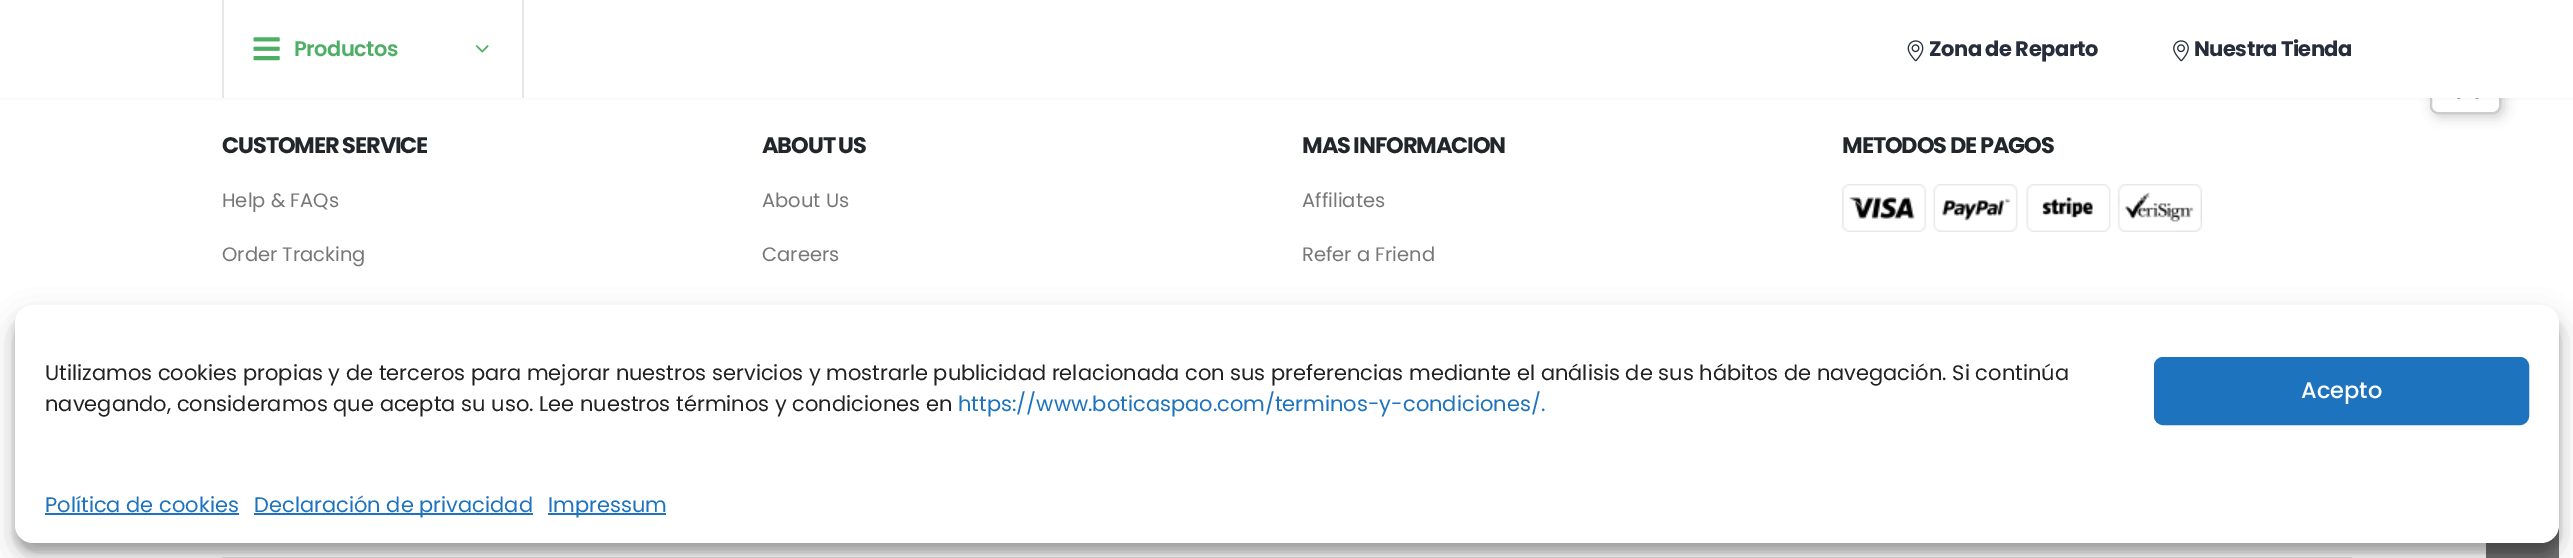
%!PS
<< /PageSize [2573 558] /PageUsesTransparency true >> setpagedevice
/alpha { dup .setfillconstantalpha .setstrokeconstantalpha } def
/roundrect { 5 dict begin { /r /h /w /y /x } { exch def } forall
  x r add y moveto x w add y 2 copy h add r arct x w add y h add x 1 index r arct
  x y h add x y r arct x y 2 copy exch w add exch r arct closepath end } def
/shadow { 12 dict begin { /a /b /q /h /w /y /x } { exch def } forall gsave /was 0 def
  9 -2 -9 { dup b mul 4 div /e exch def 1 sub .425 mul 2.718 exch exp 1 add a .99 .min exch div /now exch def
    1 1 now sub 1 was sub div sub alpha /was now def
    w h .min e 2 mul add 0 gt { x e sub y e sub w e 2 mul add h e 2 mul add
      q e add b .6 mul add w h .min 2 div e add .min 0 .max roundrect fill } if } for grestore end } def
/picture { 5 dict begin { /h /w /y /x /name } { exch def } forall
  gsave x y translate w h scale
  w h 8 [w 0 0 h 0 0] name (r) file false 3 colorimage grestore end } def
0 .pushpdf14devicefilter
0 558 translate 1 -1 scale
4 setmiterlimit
1 setgray
0 0 2573 558 rectfill
0.8 setgray
2433 47 71 70 8 6 1 shadow
1 setgray
2431 45 69 68 7 roundrect gsave fill grestore
0.8 setgray
2 setlinewidth
stroke
(img6.rgb) 2457 98 22 1 picture
0 setgray
0 0 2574 98 0 2 0.06 shadow
1 setgray
0 0 2573 98 rectfill
0.906 setgray
522 0 2 98 rectfill
222 0 2 98 rectfill
(img1.rgb) 253 37 27 24 picture
/Poppins-SemiBold [21 0 0 -21 0 0] selectfont
0.302 0.682 0.396 setrgbcolor
294 56 moveto -0.5 0 (Productos) ashow
(img2.rgb) 475 45 14 8 picture
(img3.rgb) 1907 40 17 22 picture
/Poppins-Bold [21 0 0 -21 0 0] selectfont
0.157 0.176 0.231 setrgbcolor
1929 56 moveto -0.5 0 (Zona de Reparto) ashow
(img4.rgb) 2173 40 16 22 picture
2194 56 moveto -0.5 0 (Nuestra Tienda) ashow
/Poppins-Bold [22.5 0 0 -22.5 0 0] selectfont
0.133 0.145 0.161 setrgbcolor
222 153 moveto -1.1 0 (CUSTOMER SERVICE) ashow
/Poppins-Regular [19.5 0 0 -19.5 0 0] selectfont
0.467 setgray
222 207 moveto (Help & FAQs) show
222 261 moveto (Order Tracking) show
/Poppins-Bold [22.5 0 0 -22.5 0 0] selectfont
0.133 0.145 0.161 setrgbcolor
762 153 moveto -1.1 0 (ABOUT US) ashow
/Poppins-Regular [19.5 0 0 -19.5 0 0] selectfont
0.467 setgray
762 207 moveto (About Us) show
762 261 moveto (Careers) show
/Poppins-Bold [22.5 0 0 -22.5 0 0] selectfont
0.133 0.145 0.161 setrgbcolor
1302 153 moveto -1.1 0 (MAS INFORMACION) ashow
/Poppins-Regular [19.5 0 0 -19.5 0 0] selectfont
0.467 setgray
1302 207 moveto (Affiliates) show
1302 261 moveto (Refer a Friend) show
/Poppins-Bold [22.5 0 0 -22.5 0 0] selectfont
0.133 0.145 0.161 setrgbcolor
1842 153 moveto -1.1 0 (METODOS DE PAGOS) ashow
(img5.rgb) 1842 184 360 48 picture
0.906 setgray
222 557 2130 1 rectfill
0.439 setgray
2486 525 73 33 rectfill
0 setgray
15 314 2544 238 18 4.5 0.23 shadow
15 320 2544 238 18 15 0.19 shadow
1 setgray
15 305 2544 238 18 roundrect fill
/Poppins-Regular [21 0 0 -21 0 0] selectfont
0.133 setgray
45 380 moveto (Utilizamos cookies propias y de terceros para mejorar nuestros servicios y mostrarle publicidad relacionada con sus preferencias mediante el análisis de sus hábitos de navegación. Si continúa) show
45 411 moveto (navegando, consideramos que acepta su uso. Lee nuestros términos y condiciones en) show
0.118 0.451 0.745 setrgbcolor
958 411 moveto (https://www.boticaspao.com/terminos-y-condiciones/.) show
2155 358 373 66 8 roundrect gsave fill grestore
stroke
/Poppins-Medium [22.5 0 0 -22.5 0 0] selectfont
1 setgray
2301 398 moveto (Acepto) show
/Poppins-Regular [21 0 0 -21 0 0] selectfont
0.118 0.451 0.745 setrgbcolor
45 512 moveto (Política de cookies) show
45 513 194 2 rectfill
254 513 279 2 rectfill
254 512 moveto (Declaración de privacidad) show
548 513 118 2 rectfill
548 512 moveto (Impressum) show
.poppdf14devicefilter showpage
